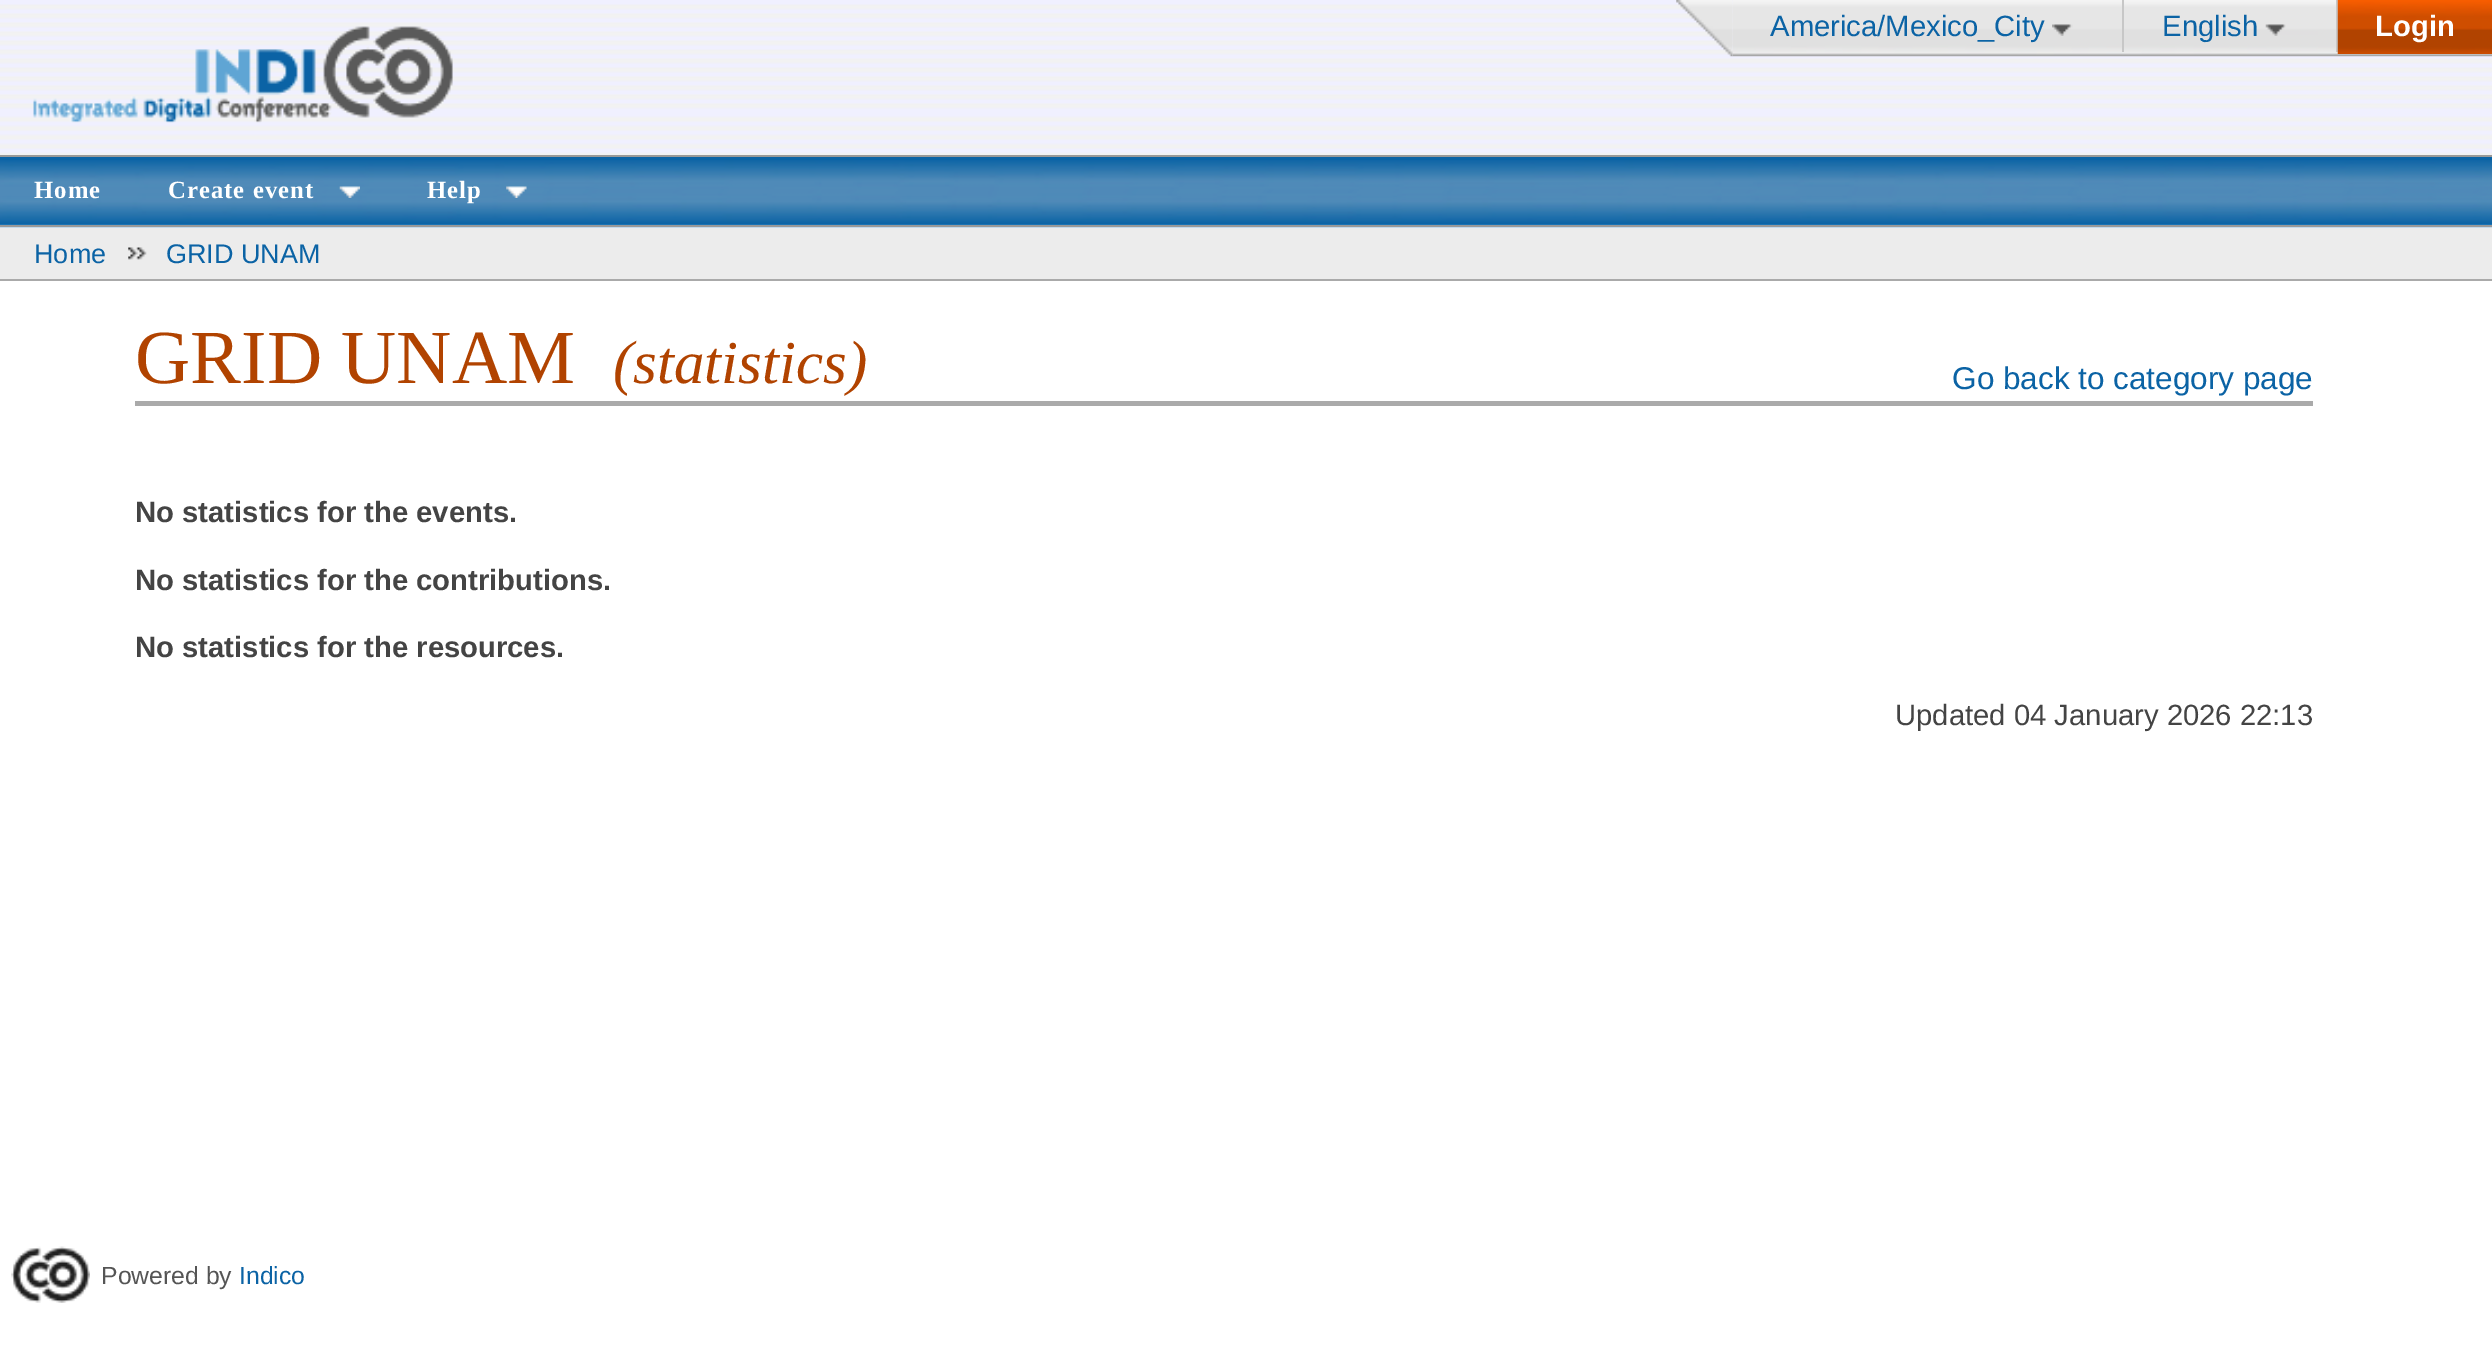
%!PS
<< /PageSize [2492 1358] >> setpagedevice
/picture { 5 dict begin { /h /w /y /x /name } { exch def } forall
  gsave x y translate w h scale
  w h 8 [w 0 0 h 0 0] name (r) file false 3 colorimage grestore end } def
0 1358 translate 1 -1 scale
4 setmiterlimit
1 setgray
0 0 2492 1358 rectfill
0.925 setgray
0 227 2492 52 rectfill
(img1.rgb) 0 0 2492 228 picture
(img2.rgb) 33 26 420 97 picture
(img4.rgb) 1732 0 760 57 picture
(img3.rgb) 1676 0 57 57 picture
0.78 setgray
2122 0 2 52 rectfill
(img5.rgb) 2052 24 21 12 picture
/LiberationSans-Regular [29.25 0 0 -29.25 0 0] selectfont
0.043 0.388 0.647 setrgbcolor
1770 36 moveto (America/Mexico_City) show
0.78 setgray
2336 0 2 52 rectfill
0.043 0.388 0.647 setrgbcolor
2162 36 moveto (English) show
(img6.rgb) 2265 24 21 12 picture
(img7.rgb) 2337 0 155 54 picture
/LiberationSans-Bold [29.25 0 0 -29.25 0 0] selectfont
1 setgray
2375 36 moveto (Login) show
0.043 0.388 0.647 setrgbcolor
0 157 2492 3 rectfill
(img8.rgb) 0 160 2492 68 picture
0.6 setgray
0 155 2492 2 rectfill
0 225 2492 2 rectfill
/LiberationSerif-Bold [24.75 0 0 -24.75 0 0] selectfont
1 setgray
34 198 moveto 1 0 (Home) ashow
(img9.rgb) 339 186 21 12 picture
168 198 moveto 1 0 (Create event) ashow
(img10.rgb) 506 186 21 12 picture
427 198 moveto 1 0 (Help) ashow
0.667 setgray
0 279 2492 2 rectfill
/LiberationSans-Regular [27 0 0 -27 0 0] selectfont
0.043 0.388 0.647 setrgbcolor
34 263 moveto (Home) show
(img11.rgb) 128 247 19 13 picture
166 263 moveto (GRID UNAM) show
0.667 setgray
135 401 2178 5 rectfill
/LiberationSerif-Regular [76.5 0 0 -76.5 0 0] selectfont
0.694 0.263 0 setrgbcolor
135 383 moveto (GRID UNAM) show
/LiberationSerif-Italic [61 0 0 -61 0 0] selectfont
613 383 moveto (\(statistics\)) show
/LiberationSans-Regular [31.5 0 0 -31.5 0 0] selectfont
0.043 0.388 0.647 setrgbcolor
1952 389 moveto (Go back to category page) show
/LiberationSans-Bold [29.25 0 0 -29.25 0 0] selectfont
0.267 setgray
135 522 moveto (No statistics for the events.) show
135 590 moveto (No statistics for the contributions.) show
135 657 moveto (No statistics for the resources.) show
/LiberationSans-Regular [29.25 0 0 -29.25 0 0] selectfont
1895 725 moveto (Updated 04 January 2026 22:13) show
(img12.rgb) 11 1246 79 57 picture
/LiberationSans-Regular [24.75 0 0 -24.75 0 0] selectfont
0.333 setgray
101 1284 moveto (Powered by) show
0.043 0.388 0.647 setrgbcolor
239 1284 moveto (Indico) show
showpage
